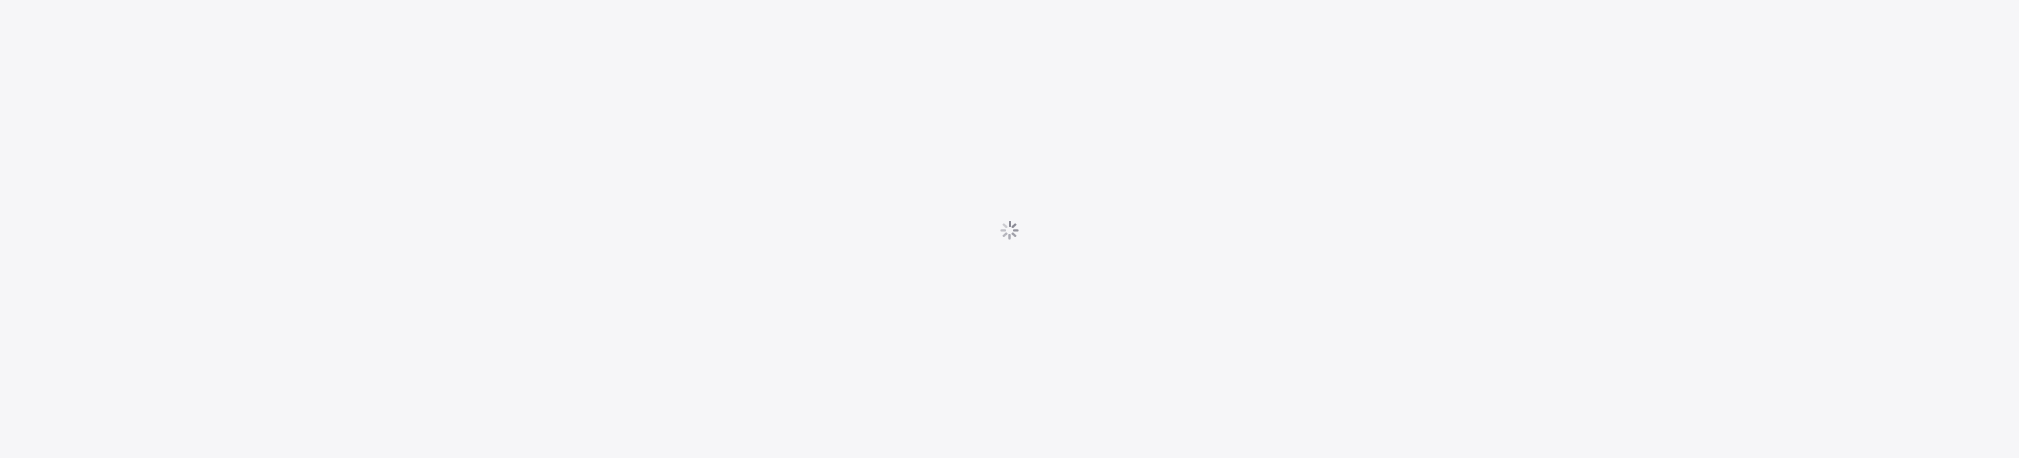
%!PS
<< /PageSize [2019 458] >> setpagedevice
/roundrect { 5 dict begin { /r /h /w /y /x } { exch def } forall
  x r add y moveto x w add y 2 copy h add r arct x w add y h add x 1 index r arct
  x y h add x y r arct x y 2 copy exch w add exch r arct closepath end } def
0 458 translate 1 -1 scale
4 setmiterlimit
0.965 0.965 0.973 setrgbcolor
0 0 2019 458 rectfill
0.796 0.796 0.816 setrgbcolor
newpath 1003 224 moveto 1004 223 1005 224.5 1005.5 225 curveto 1006.5 225.5 1008 227 1007 227.5 curveto 1006 228.5 1005 227 1004.5 226.5 curveto 1004 226 1002 225 1003 224 curveto closepath fill
0.541 0.541 0.584 setrgbcolor
1009 221 2 6 1 roundrect fill
newpath 1016 224 moveto 1017 225 1015 226 1014.5 226.5 curveto 1014 227 1013 228.5 1012 227.5 curveto 1011 227 1012.5 225.5 1013.5 225 curveto 1014 224.5 1015 223 1016 224 curveto closepath fill
0.753 0.753 0.78 setrgbcolor
newpath 1000.5 230.5 moveto 1000.5 229 1002.5 229.5 1003 229.5 curveto 1004 229.5 1006 229 1006 230.5 curveto 1006 231.5 1004 231.5 1003 231.5 curveto 1002.5 231.5 1000.5 231.5 1000.5 230.5 curveto closepath fill
0.584 0.584 0.624 setrgbcolor
newpath 1018.5 230.5 moveto 1018.5 231.5 1016.5 231.5 1016 231.5 curveto 1015 231.5 1013 231.5 1013 230.5 curveto 1013 229 1015 229.5 1016 229.5 curveto 1016.5 229.5 1018.5 229 1018.5 230.5 curveto closepath fill
0.71 0.71 0.741 setrgbcolor
newpath 1003 236.5 moveto 1002 235.5 1004 234.5 1004.5 234 curveto 1005 233.5 1006 232 1007 233 curveto 1008 234 1006.5 235 1005.5 235.5 curveto 1005 236 1004 237.5 1003 236.5 curveto closepath fill
0.667 0.667 0.702 setrgbcolor
newpath 1009.5 239.5 moveto 1008 239.5 1008.5 237.5 1008.5 236.5 curveto 1008.5 236 1008 234 1009.5 234 curveto 1011 234 1010.5 236 1010.5 236.5 curveto 1010.5 237.5 1011 239.5 1009.5 239.5 curveto closepath fill
0.627 0.627 0.663 setrgbcolor
newpath 1016 236.5 moveto 1015 237.5 1014 236 1013.5 235.5 curveto 1012.5 235 1011 234 1012 233 curveto 1013 232 1014 233.5 1014.5 234 curveto 1015 234.5 1017 235.5 1016 236.5 curveto closepath fill
showpage
